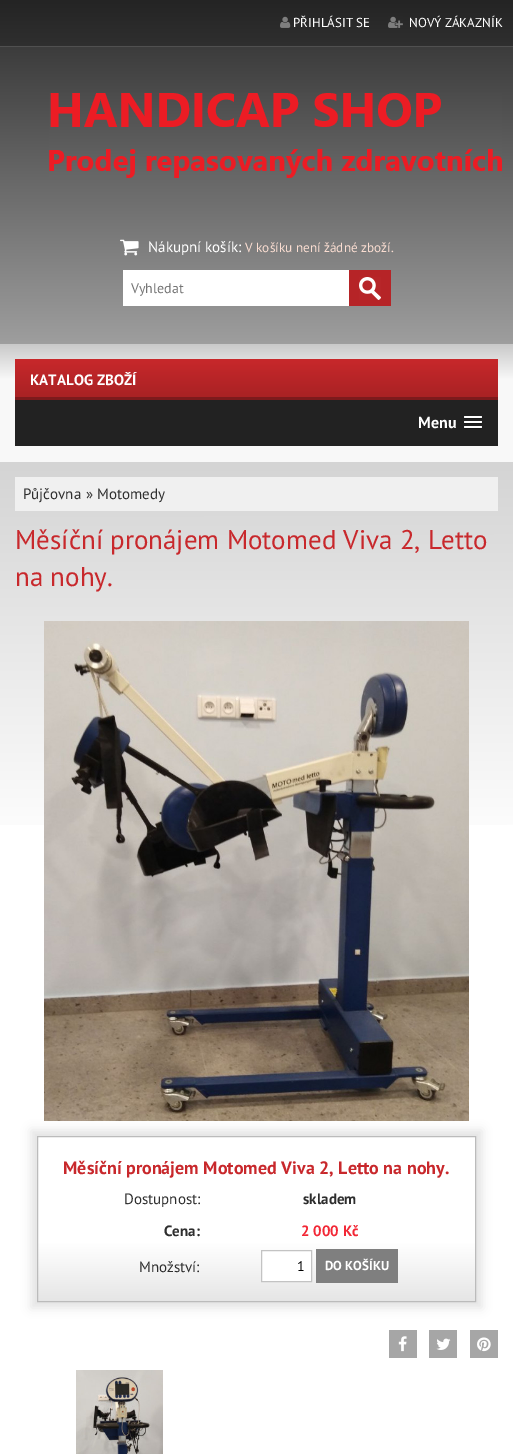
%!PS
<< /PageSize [513 1454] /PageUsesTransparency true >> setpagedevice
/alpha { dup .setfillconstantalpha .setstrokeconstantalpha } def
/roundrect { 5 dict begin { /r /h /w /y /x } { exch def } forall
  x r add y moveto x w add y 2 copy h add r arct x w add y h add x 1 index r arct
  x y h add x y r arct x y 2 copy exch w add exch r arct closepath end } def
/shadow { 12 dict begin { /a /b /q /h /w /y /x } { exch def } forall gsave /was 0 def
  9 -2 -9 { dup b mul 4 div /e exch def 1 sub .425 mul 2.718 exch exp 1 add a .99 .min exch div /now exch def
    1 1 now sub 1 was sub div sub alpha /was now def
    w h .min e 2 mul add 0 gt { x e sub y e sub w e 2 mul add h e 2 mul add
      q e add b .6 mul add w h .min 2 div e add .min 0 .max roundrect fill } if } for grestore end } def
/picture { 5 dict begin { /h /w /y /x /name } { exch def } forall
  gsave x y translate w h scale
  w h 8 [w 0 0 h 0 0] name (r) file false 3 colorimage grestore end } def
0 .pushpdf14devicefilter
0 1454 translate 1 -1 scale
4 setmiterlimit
1 setgray
0 0 513 1454 rectfill
gsave newpath 0 0 moveto 513 0 lineto 513 46 lineto 0 46 lineto closepath clip newpath
<< /ShadingType 2 /ColorSpace /DeviceRGB /Coords [257 0 257 450] /Extend [true true] /Function << /FunctionType 2 /Domain [0 1] /C0 [0.141 0.141 0.141] /C1 [0.561 0.561 0.561] /N 1 >> >> shfill grestore
(img1.rgb) 280 16 11 12 picture
/PTSans-Regular [13 0 0 -13 0 0] selectfont
293 27 moveto (PŘIHLÁSIT SE) show
(img2.rgb) 388 16 15 12 picture
409 27 moveto (NOVÝ ZÁKAZNÍK) show
gsave newpath 0 47 moveto 513 47 lineto 513 344 lineto 0 344 lineto closepath clip newpath
<< /ShadingType 2 /ColorSpace /DeviceRGB /Coords [257 46 257 344] /Extend [true true] /Function << /FunctionType 2 /Domain [0 1] /C0 [0.235 0.235 0.235] /C1 [0.62 0.62 0.62] /N 1 >> >> shfill grestore
0.314 setgray
0 46 513 1 rectfill
(img3.rgb) 49 93 453 85 picture
(img4.rgb) 120 239 19 17 picture
/PTSans-Regular [15 0 0 -15 0 0] selectfont
1 setgray
148 252 moveto (Nákupní košík:) show
/PTSans-Regular [13.25 0 0 -13.25 0 0] selectfont
0.98 0.867 0.82 setrgbcolor
245 252 moveto (V košíku není žádné zboží.) show
1 setgray
123 270 226 36 rectfill
/PTSans-Regular [14 0 0 -14 0 0] selectfont
0.459 setgray
131 293 moveto (Vyhledat) show
0.714 0.141 0.153 setrgbcolor
349 270 42 36 rectfill
(img5.rgb) 359 277 22 23 picture
gsave newpath 0 344 moveto 513 344 lineto 513 462 lineto 0 462 lineto closepath clip newpath
<< /ShadingType 2 /ColorSpace /DeviceRGB /Coords [257 344 257 462] /Extend [true true] /Function << /FunctionType 3 /Domain [0 1] /Functions [<< /FunctionType 2 /Domain [0 1] /C0 [0.788 0.788 0.788] /C1 [0.973 0.973 0.973] /N 1 >> << /FunctionType 2 /Domain [0 1] /C0 [0.973 0.973 0.973] /C1 [0.973 0.973 0.973] /N 1 >>] /Bounds [0.3] /Encode [0 1 0 1] >> >> shfill grestore
gsave newpath 15 359 moveto 498 359 lineto 498 397 lineto 15 397 lineto closepath clip newpath
<< /ShadingType 2 /ColorSpace /DeviceRGB /Coords [257 359 257 397] /Extend [true true] /Function << /FunctionType 2 /Domain [0 1] /C0 [0.784 0.157 0.169] /C1 [0.663 0.133 0.141] /N 1 >> >> shfill grestore
0.49 0.102 0.11 setrgbcolor
15 397 483 3 rectfill
/PTSans-Bold [15 0 0 -15 0 0] selectfont
1 setgray
30 385 moveto (KATALOG ZBOŽÍ) show
0.133 setgray
15 400 483 46 rectfill
/PTSans-Bold [16 0 0 -16 0 0] selectfont
1 setgray
418 428 moveto (Menu) show
0.102 setgray
newpath 464 417.5 moveto 463 419.5 467.5 419 467.5 419 curveto 478.5 419 lineto 478.5 419 483 419.5 482 417.5 curveto 481 418.5 474.5 418 473 418 curveto 471.5 418 465 418.5 464 417.5 curveto closepath fill
1 setgray
464 416 18 2 1 roundrect fill
0.102 setgray
newpath 464 422.5 moveto 463 424.5 467.5 424 467.5 424 curveto 478.5 424 lineto 478.5 424 483 424.5 482 422.5 curveto 481 423.5 474.5 423 473 423 curveto 471.5 423 465 423.5 464 422.5 curveto closepath fill
1 setgray
464 421 18 2 1 roundrect fill
0.102 setgray
newpath 464 427.5 moveto 463 429.5 467.5 429 467.5 429 curveto 478.5 429 lineto 478.5 429 483 429.5 482 427.5 curveto 481 428.5 474.5 428 473 428 curveto 471.5 428 465 428.5 464 427.5 curveto closepath fill
1 setgray
464 426 18 2 1 roundrect fill
gsave newpath 0 462 moveto 513 462 lineto 513 825 lineto 0 825 lineto closepath clip newpath
<< /ShadingType 2 /ColorSpace /DeviceRGB /Coords [256 462 257 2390] /Extend [true true] /Function << /FunctionType 3 /Domain [0 1] /Functions [<< /FunctionType 2 /Domain [0 1] /C0 [0.831 0.831 0.831] /C1 [1 1 1] /N 1 >> << /FunctionType 2 /Domain [0 1] /C0 [1 1 1] /C1 [1 1 1] /N 1 >>] /Bounds [0.2] /Encode [0 1 0 1] >> >> shfill grestore
0.941 setgray
15 477 483 34 rectfill
/PTSans-Regular [15 0 0 -15 0 0] selectfont
0.18 setgray
23 499 moveto (Půjčovna) show
86 499 moveto (») show
97 499 moveto (Motomedy) show
/PTSans-Regular [27 0 0 -27 0 0] selectfont
0.784 0.157 0.173 setrgbcolor
15 549 moveto (Měsíční pronájem Motomed Viva 2, Letto) show
15 586 moveto (na nohy.) show
(img6.rgb) 44 621 425 500 picture
0.886 setgray
31 1130 451 178 0 5 1 shadow
gsave newpath 38 1137 moveto 475 1137 lineto 475 1300 lineto 38 1300 lineto closepath clip newpath
<< /ShadingType 2 /ColorSpace /DeviceRGB /Coords [257 1137 257 1301] /Extend [true true] /Function << /FunctionType 3 /Domain [0 1] /Functions [<< /FunctionType 2 /Domain [0 1] /C0 [1 1 1] /C1 [1 1 1] /N 1 >> << /FunctionType 2 /Domain [0 1] /C0 [1 1 1] /C1 [0.902 0.902 0.902] /N 1 >>] /Bounds [0.64] /Encode [0 1 0 1] >> >> shfill grestore
0.733 setgray
37.5 1136.5 438 165 rectstroke
/PTSans-Bold [18 0 0 -18 0 0] selectfont
0.784 0.157 0.173 setrgbcolor
63 1174 moveto (Měsíční pronájem Motomed Viva 2, Letto na nohy.) show
/PTSans-Regular [15 0 0 -15 0 0] selectfont
0.18 setgray
124 1204 moveto (Dostupnost:) show
/PTSans-Bold [15 0 0 -15 0 0] selectfont
303 1204 moveto (skladem) show
164 1236 moveto (Cena:) show
0.949 0.157 0.212 setrgbcolor
301 1236 moveto (2 000 Kč) show
/PTSans-Regular [15 0 0 -15 0 0] selectfont
0.18 setgray
139 1272 moveto (Množství:) show
1 setgray
newpath 261.5 1250.5 moveto 311.5 1250.5 lineto 311.5 1281.5 lineto 261.5 1281.5 lineto closepath gsave fill grestore
0.765 setgray
stroke
/PTSans-Regular [14 0 0 -14 0 0] selectfont
0 setgray
297 1271 moveto (1) show
0.498 setgray
316 1249 82 34 rectfill
/PTSans-Bold [13 0 0 -13 0 0] selectfont
1 setgray
325 1270 moveto (DO KOŠÍKU) show
0.651 setgray
389 1330 28 28 rectfill
(img7.rgb) 398 1336 9 16 picture
429 1330 28 28 rectfill
(img8.rgb) 436 1338 15 12 picture
470 1330 28 28 rectfill
(img9.rgb) 477 1337 14 15 picture
(img10.rgb) 76 1370 87 84 picture
.poppdf14devicefilter showpage
